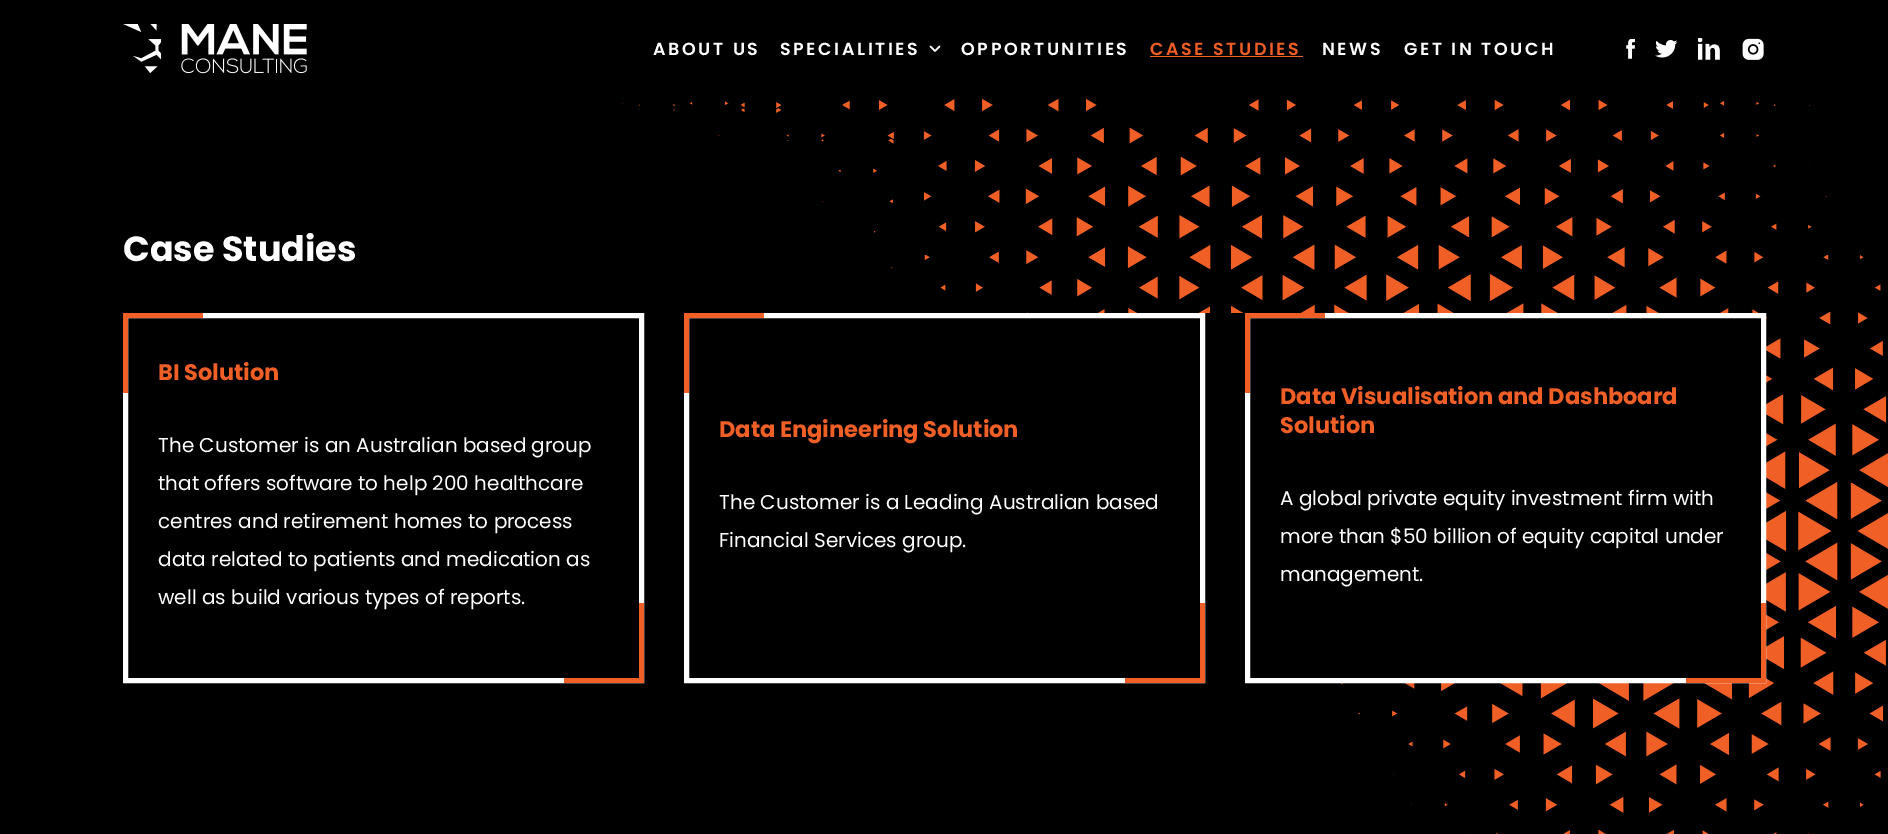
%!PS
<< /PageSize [1888 834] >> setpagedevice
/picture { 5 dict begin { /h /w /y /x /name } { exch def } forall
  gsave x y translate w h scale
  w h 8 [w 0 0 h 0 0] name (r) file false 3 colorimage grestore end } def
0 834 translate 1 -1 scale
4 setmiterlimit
0 setgray
0 0 1888 834 rectfill
(img1.rgb) 123 24 184 50 picture
/Poppins-SemiBold [17.5 0 0 -17.5 0 0] selectfont
1 setgray
653 55 moveto 2.6 0 (ABOUT US) ashow
780 55 moveto 2.6 0 (SPECIALITIES) ashow
1.5 setlinewidth
1 setlinecap
1 setlinejoin
newpath 930.5 46.5 moveto 935 51 lineto 939.5 46.5 lineto stroke
961 55 moveto 2.6 0 (OPPORTUNITIES) ashow
0.941 0.373 0.145 setrgbcolor
1150 55 moveto 2.6 0 (CASE STUDIES) ashow
1150 56 153 1 rectfill
1 setgray
1322 55 moveto 2.6 0 (NEWS) ashow
1404 55 moveto 2.6 0 (GET IN TOUCH) ashow
(img2.rgb) 1626 39 9 20 picture
(img3.rgb) 1655 40 23 18 picture
(img4.rgb) 1698 38 22 22 picture
(img5.rgb) 1742 38 22 22 picture
(img6.rgb) 621 98 1267 736 picture
/Poppins-Bold [35 0 0 -35 0 0] selectfont
123 261 moveto (Case Studies) show
0 setgray
891 313 870 370 rectfill
1 setgray
5 setlinewidth
0 setlinecap
0 setlinejoin
125.5 315.5 516 365 rectstroke
0.941 0.373 0.145 setrgbcolor
123 313 80 5 rectfill
123 313 5 80 rectfill
/Poppins-Bold [22.5 0 0 -22.5 0 0] selectfont
158 380 moveto (BI Solution) show
/Poppins-Regular [20 0 0 -20 0 0] selectfont
1 setgray
158 452 moveto (The Customer is an Australian based group) show
158 490 moveto (that offers software to help 200 healthcare) show
158 528 moveto (centres and retirement homes to process) show
158 566 moveto (data related to patients and medication as) show
158 604 moveto (well as build various types of reports.) show
0.941 0.373 0.145 setrgbcolor
639 603 5 80 rectfill
564 678 80 5 rectfill
1 setgray
686.5 315.5 516 365 rectstroke
0.941 0.373 0.145 setrgbcolor
684 313 80 5 rectfill
684 313 5 80 rectfill
/Poppins-Bold [22.5 0 0 -22.5 0 0] selectfont
719 437 moveto (Data Engineering Solution) show
/Poppins-Regular [20 0 0 -20 0 0] selectfont
1 setgray
719 509 moveto (The Customer is a Leading Australian based) show
719 547 moveto (Financial Services group.) show
0.941 0.373 0.145 setrgbcolor
1200 603 5 80 rectfill
1125 678 80 5 rectfill
1 setgray
1247.5 315.5 516 365 rectstroke
0.941 0.373 0.145 setrgbcolor
1245 313 80 5 rectfill
1245 313 5 80 rectfill
/Poppins-Bold [22.5 0 0 -22.5 0 0] selectfont
1280 404 moveto (Data Visualisation and Dashboard) show
1280 433 moveto (Solution) show
/Poppins-Regular [20 0 0 -20 0 0] selectfont
1 setgray
1280 505 moveto (A global private equity investment firm with) show
1280 543 moveto (more than $50 billion of equity capital under) show
1280 581 moveto (management.) show
0.941 0.373 0.145 setrgbcolor
1761 603 5 80 rectfill
1686 678 80 5 rectfill
0 setgray
newpath 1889 832 moveto 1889 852 lineto 945 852 lineto closepath fill
showpage
